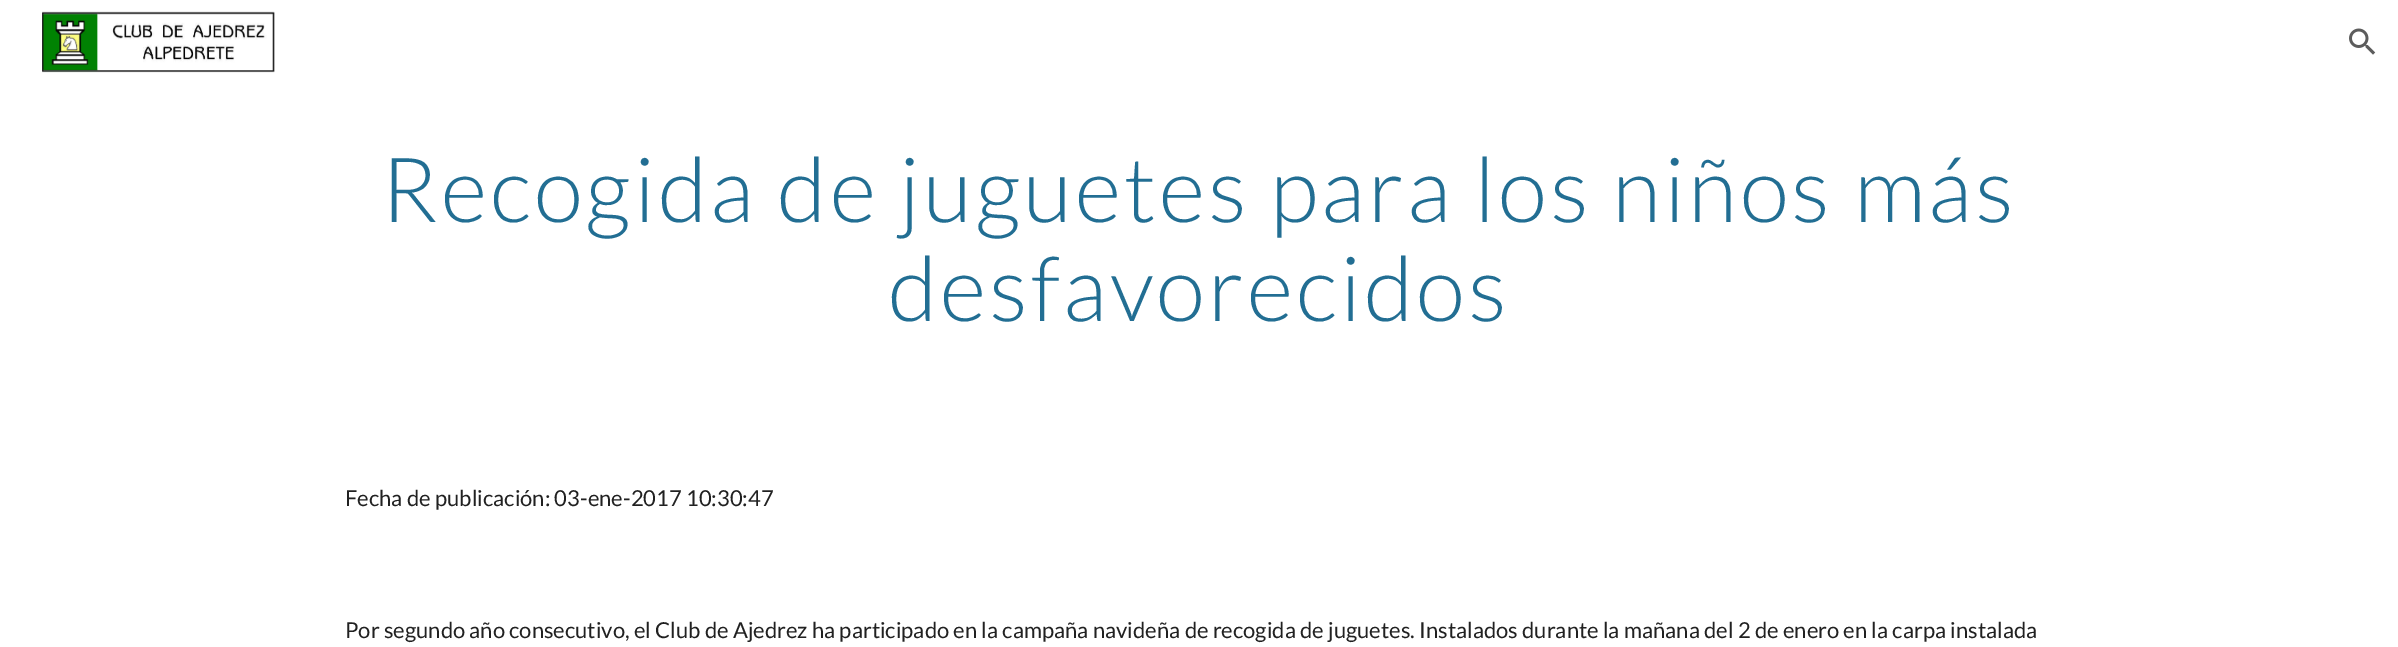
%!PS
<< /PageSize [2398 647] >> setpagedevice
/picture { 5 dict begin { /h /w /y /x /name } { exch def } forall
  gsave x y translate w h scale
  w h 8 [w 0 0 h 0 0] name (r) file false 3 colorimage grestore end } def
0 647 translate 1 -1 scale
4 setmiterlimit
1 setgray
0 0 2398 647 rectfill
(img1.rgb) 42 11 233 62 picture
(img2.rgb) 2349 28 27 27 picture
/Lato-Light [90 0 0 -90 0 0] selectfont
0.133 0.431 0.576 setrgbcolor
381 222 moveto 3 0 (Recogida de juguetes para los niños más) ashow
888 321 moveto 3 0 (desfavorecidos) ashow
/Lato-Regular [22 0 0 -22 0 0] selectfont
0.129 setgray
345 506 moveto (Fecha de publicación: 03-ene-2017 10:30:47) show
345 638 moveto (Por segundo año consecutivo, el Club de Ajedrez ha participado en la campaña navideña de recogida de juguetes. Instalados durante la mañana del 2 de enero en la carpa instalada) show
showpage
